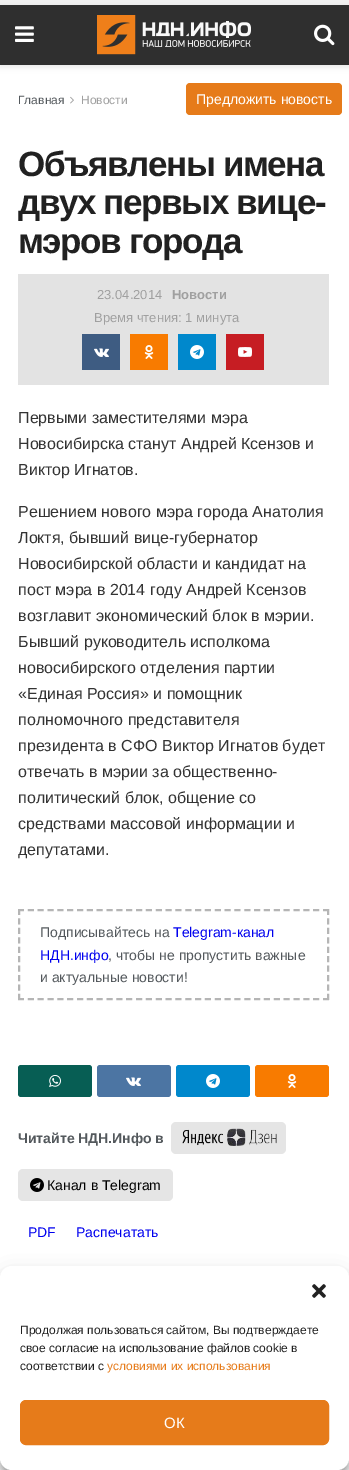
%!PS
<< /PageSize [349 1470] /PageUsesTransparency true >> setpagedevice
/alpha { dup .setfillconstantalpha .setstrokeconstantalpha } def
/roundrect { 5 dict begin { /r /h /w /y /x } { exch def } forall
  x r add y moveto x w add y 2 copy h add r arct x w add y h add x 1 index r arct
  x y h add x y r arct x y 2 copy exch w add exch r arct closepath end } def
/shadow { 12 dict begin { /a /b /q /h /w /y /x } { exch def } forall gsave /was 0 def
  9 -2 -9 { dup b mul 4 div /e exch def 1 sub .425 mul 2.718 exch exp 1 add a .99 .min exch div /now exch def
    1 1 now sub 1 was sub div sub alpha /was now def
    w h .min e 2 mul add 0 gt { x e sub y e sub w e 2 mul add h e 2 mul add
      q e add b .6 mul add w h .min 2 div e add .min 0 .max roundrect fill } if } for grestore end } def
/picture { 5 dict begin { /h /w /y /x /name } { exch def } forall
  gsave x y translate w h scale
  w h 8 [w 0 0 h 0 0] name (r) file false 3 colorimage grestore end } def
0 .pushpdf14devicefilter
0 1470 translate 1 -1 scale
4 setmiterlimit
0.949 setgray
0 0 349 1470 rectfill
1 setgray
0 65 349 1405 rectfill
0 setgray
0 7 349 60 0 3 0.1 shadow
0.184 setgray
0 5 349 60 rectfill
(img1.rgb) 15 26 19 16 picture
(img2.rgb) 97 15 154 40 picture
(img3.rgb) 314 24 21 22 picture
/LiberationSans-Regular [12 0 0 -12 0 0] selectfont
0.325 0.345 0.361 setrgbcolor
18 104 moveto (Главная) show
(img4.rgb) 70 96 4 8 picture
0.627 setgray
81 104 moveto (Новости) show
0.902 0.482 0.102 setrgbcolor
186 83 156 32 4 roundrect fill
/LiberationSans-Regular [14 0 0 -14 0 0] selectfont
1 setgray
196 104 moveto (Предложить новость) show
/LiberationSans-Bold [35 0 0 -35 0 0] selectfont
0.129 setgray
18 176 moveto -1.4 0 (Объявлены имена) ashow
18 214 moveto -1.4 0 (двух первых вице-) ashow
18 253 moveto -1.4 0 (мэров города) ashow
0.89 setgray
18 274 311 111 rectfill
/LiberationSans-Regular [13 0 0 -13 0 0] selectfont
0.627 setgray
97 299 moveto (23.04.2014) show
/LiberationSans-Bold [13 0 0 -13 0 0] selectfont
172 299 moveto (Новости) show
/LiberationSans-Regular [13 0 0 -13 0 0] selectfont
94 322 moveto (Время чтения: 1 минута) show
0.243 0.361 0.51 setrgbcolor
82 334 38 36 rectfill
(img5.rgb) 94 348 15 9 picture
0.973 0.482 0 setrgbcolor
130 334 38 36 rectfill
(img6.rgb) 144 345 10 14 picture
0 0.533 0.8 setrgbcolor
178 334 38 36 rectfill
(img7.rgb) 190 345 14 14 picture
0.776 0.114 0.137 setrgbcolor
226 334 38 36 rectfill
(img8.rgb) 238 347 14 10 picture
/LiberationSans-Regular [16 0 0 -16 0 0] selectfont
0.2 setgray
18 423 moveto (Первыми заместителями мэра) show
18 449 moveto (Новосибирска станут Андрей Ксензов и) show
18 475 moveto (Виктор Игнатов.) show
18 517 moveto (Решением нового мэра города Анатолия) show
18 543 moveto (Локтя, бывший вице-губернатор) show
18 569 moveto (Новосибирской области и кандидат на) show
18 595 moveto (пост мэра в 2014 году Андрей Ксензов) show
18 621 moveto (возглавит экономический блок в мэрии.) show
18 647 moveto (Бывший руководитель исполкома) show
18 673 moveto (новосибирского отделения партии) show
18 699 moveto («Единая Россия» и помощник) show
18 725 moveto (полномочного представителя) show
18 751 moveto (президента в СФО Виктор Игнатов будет) show
18 777 moveto (отвечать в мэрии за общественно-) show
18 803 moveto (политический блок, общение со) show
18 829 moveto (средствами массовой информации и) show
18 855 moveto (депутатами.) show
0.71 setgray
2 setlinewidth
[6 3.84] 0 setdash
newpath 18 910 moveto 329 910 lineto stroke
[6 3.44] 0 setdash
newpath 328 909 moveto 328 1000 lineto stroke
[6 3.84] 0 setdash
newpath 18 999 moveto 329 999 lineto stroke
[6 3.44] 0 setdash
newpath 19 909 moveto 19 1000 lineto stroke
/LiberationSans-Regular [14 0 0 -14 0 0] selectfont
0.325 0.345 0.361 setrgbcolor
40 937 moveto (Подписывайтесь на) show
0 0 0.933 setrgbcolor
173 937 moveto (Telegram-канал) show
40 960 moveto (НДН.инфо) show
0.325 0.345 0.361 setrgbcolor
108 960 moveto (, чтобы не пропустить важные) show
40 982 moveto (и актуальные новости!) show
0.027 0.369 0.329 setrgbcolor
18 1065 74 32 3 roundrect fill
(img9.rgb) 49 1075 12 12 picture
0.298 0.459 0.639 setrgbcolor
97 1065 74 32 3 roundrect fill
(img10.rgb) 126 1077 15 9 picture
0 0.533 0.8 setrgbcolor
176 1065 74 32 3 roundrect fill
(img7.rgb) 206 1074 14 14 picture
0.973 0.482 0 setrgbcolor
255 1065 74 32 3 roundrect fill
(img6.rgb) 287 1074 10 14 picture
/LiberationSans-Bold [14 0 0 -14 0 0] selectfont
0.325 0.345 0.361 setrgbcolor
18 1143 moveto (Читайте НДН.Инфо в) show
0.898 setgray
171 1122 115 32 5 roundrect fill
(img11.rgb) 182 1128 95 18 picture
18 1169 155 32 5 roundrect fill
(img12.rgb) 30 1178 14 14 picture
/LiberationSans-Regular [14 0 0 -14 0 0] selectfont
0 setgray
47 1190 moveto (Канал в Telegram) show
0 0 0.933 setrgbcolor
28 1237 moveto (PDF) show
76 1237 moveto (Распечатать) show
0 setgray
0 1272 349 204 12 3 0.23 shadow
0 1276 349 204 12 10 0.19 shadow
1 setgray
0 1266 349 204 12 roundrect fill
(img13.rgb) 312 1284 14 14 picture
/LiberationSans-Regular [12 0 0 -12 0 0] selectfont
0.129 setgray
20 1334 moveto (Продолжая пользоваться сайтом, Вы подтверждаете) show
20 1352 moveto (свое согласие на использование файлов cookie в) show
20 1370 moveto (соответствии с) show
0.902 0.482 0.102 setrgbcolor
107 1370 moveto (условиями их использования) show
20.5 1400.5 308 44 5.5 roundrect gsave fill grestore
1 setlinewidth
[] 0 setdash
stroke
/LiberationSans-Regular [15 0 0 -15 0 0] selectfont
1 setgray
164 1428 moveto (ОК) show
.poppdf14devicefilter showpage
